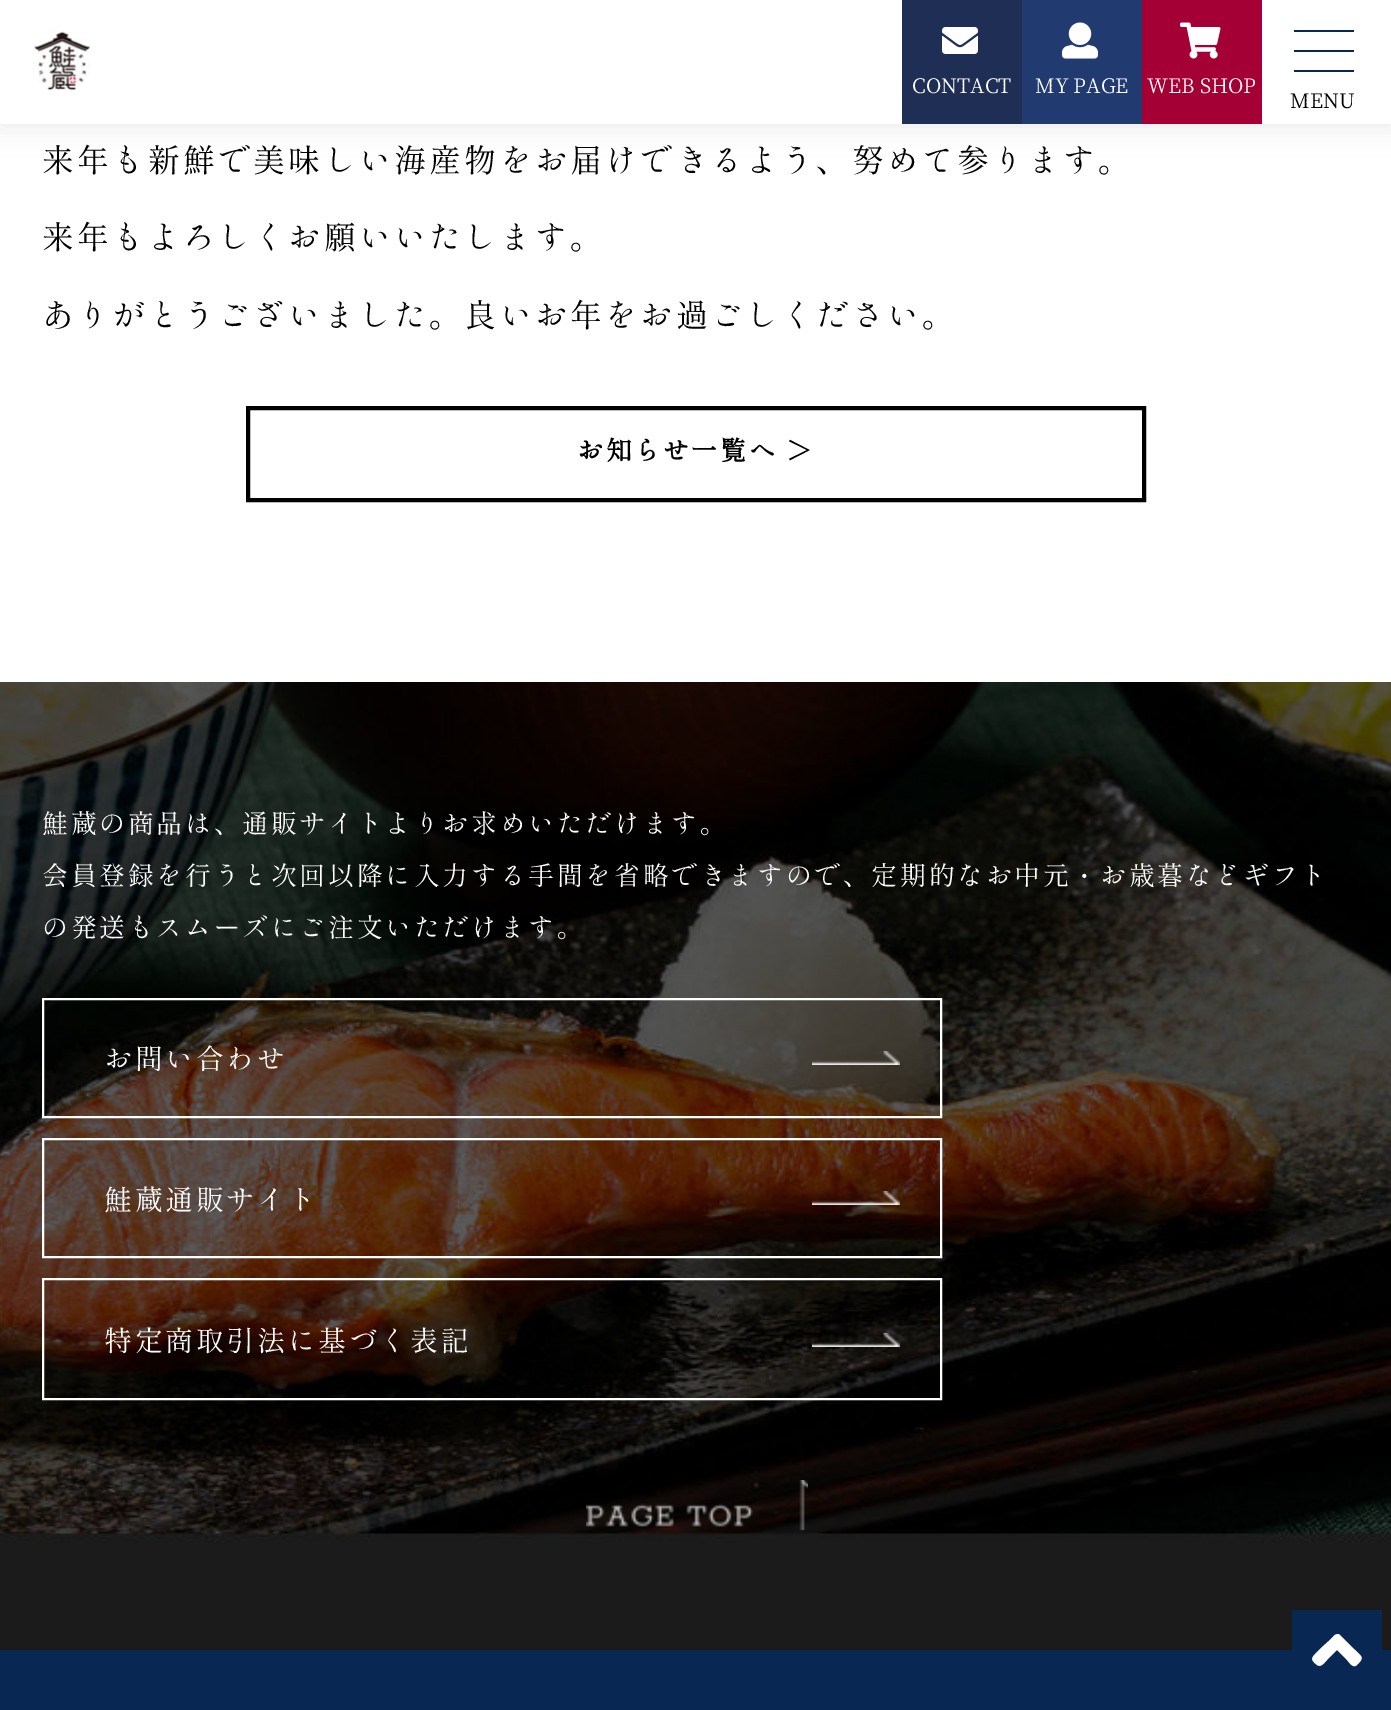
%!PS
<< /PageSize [1391 1710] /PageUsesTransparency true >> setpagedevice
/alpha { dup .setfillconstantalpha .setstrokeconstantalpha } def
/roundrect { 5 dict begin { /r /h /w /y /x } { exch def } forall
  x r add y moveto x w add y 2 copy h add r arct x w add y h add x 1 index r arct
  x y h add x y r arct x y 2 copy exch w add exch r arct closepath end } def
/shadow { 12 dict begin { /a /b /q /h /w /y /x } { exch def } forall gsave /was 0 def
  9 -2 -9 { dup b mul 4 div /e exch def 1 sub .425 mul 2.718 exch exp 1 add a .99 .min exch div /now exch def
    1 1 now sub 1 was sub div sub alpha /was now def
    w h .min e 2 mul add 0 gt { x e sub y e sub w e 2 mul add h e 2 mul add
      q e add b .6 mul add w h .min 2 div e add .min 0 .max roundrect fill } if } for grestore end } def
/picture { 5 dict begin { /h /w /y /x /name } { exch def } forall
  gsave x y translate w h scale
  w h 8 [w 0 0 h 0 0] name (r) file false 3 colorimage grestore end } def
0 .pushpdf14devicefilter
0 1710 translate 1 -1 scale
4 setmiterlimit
1 setgray
0 0 1391 1710 rectfill
0 setgray
0 0 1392 124 0 15 0.1 shadow
1 setgray
0 0 1391 124 rectfill
(img1.rgb) 32 31 59 60 picture
0.122 0.18 0.333 setrgbcolor
902 0 120 124 rectfill
(img2.rgb) 942 27 36 27 picture
/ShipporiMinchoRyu-Regular [20 0 0 -20 0 0] selectfont
1 setgray
912 93 moveto (CONTACT) show
0.129 0.227 0.439 setrgbcolor
1022 0 120 124 rectfill
(img3.rgb) 1062 22 36 37 picture
1 setgray
1035 93 moveto (MY PAGE) show
0.643 0 0.208 setrgbcolor
1142 0 120 124 rectfill
(img4.rgb) 1180 22 41 37 picture
1 setgray
1147 93 moveto (WEB SHOP) show
0.031 0.153 0.322 setrgbcolor
1294 30 60 2 rectfill
1294 50 60 2 rectfill
1294 70 60 2 rectfill
0 setgray
1290 108 moveto (MENU) show
/ShipporiMinchoRyu-Regular [32 0 0 -32 0 0] selectfont
42 172 moveto 3.2 0 (来年も新鮮で美味しい海産物をお届けできるよう、努めて参ります。) ashow
42 249 moveto 3.2 0 (来年もよろしくお願いいたします。) ashow
42 327 moveto 3.2 0 (ありがとうございました。良いお年をお過ごしください。) ashow
4 setlinewidth
248 408 896 92 rectstroke
/ShipporiMinchoRyu-Bold [26 0 0 -26 0 0] selectfont
577 460 moveto 2.6 0 (お知らせ一覧へ ＞) ashow
(img5.rgb) 0 682 1391 968 picture
/ShipporiMinchoRyu-Regular [26 0 0 -26 0 0] selectfont
1 setgray
42 833 moveto 2.6 0 (鮭蔵の商品は、通販サイトよりお求めいただけます。) ashow
42 885 moveto 2.6 0 (会員登録を行うと次回以降に入力する手間を省略できますので、定期的なお中元) ashow
/WenQuanYiZenHei-Medium [26 0 0 -26 0 0] selectfont
1071 885 moveto 2.6 0 (・) ashow
/ShipporiMinchoRyu-Regular [26 0 0 -26 0 0] selectfont
1100 885 moveto 2.6 0 (お歳暮などギフト) ashow
42 937 moveto 2.6 0 (の発送もスムーズにご注文いただけます。) ashow
2 setlinewidth
43 999 898 118 rectstroke
/ShipporiMinchoRyu-Regular [28 0 0 -28 0 0] selectfont
104 1069 moveto 2.6 0 (お問い合わせ) ashow
(img6.rgb) 812 1051 88 14 picture
43 1139 898 118 rectstroke
104 1210 moveto 2.6 0 (鮭蔵通販サイト) ashow
(img7.rgb) 812 1191 88 14 picture
43 1279 898 120 rectstroke
104 1351 moveto 2.6 0 (特定商取引法に基づく表記) ashow
(img8.rgb) 812 1333 88 14 picture
(img9.rgb) 586 1480 222 50 picture
0.031 0.153 0.322 setrgbcolor
0 1650 1391 60 rectfill
1292 1610 90 40 rectfill
1 setgray
newpath 1340 1635 moveto 1354 1649 lineto 1362 1657 1365 1657 1357 1665 curveto 1353 1669 1349 1662 1347 1660 curveto 1337 1650 lineto 1327 1660 lineto 1325 1662 1321 1668 1317 1665 curveto 1308 1658 1313 1657 1320 1649 curveto 1331 1639 lineto 1333 1637 1336 1632 1340 1635 curveto closepath fill
.poppdf14devicefilter showpage
